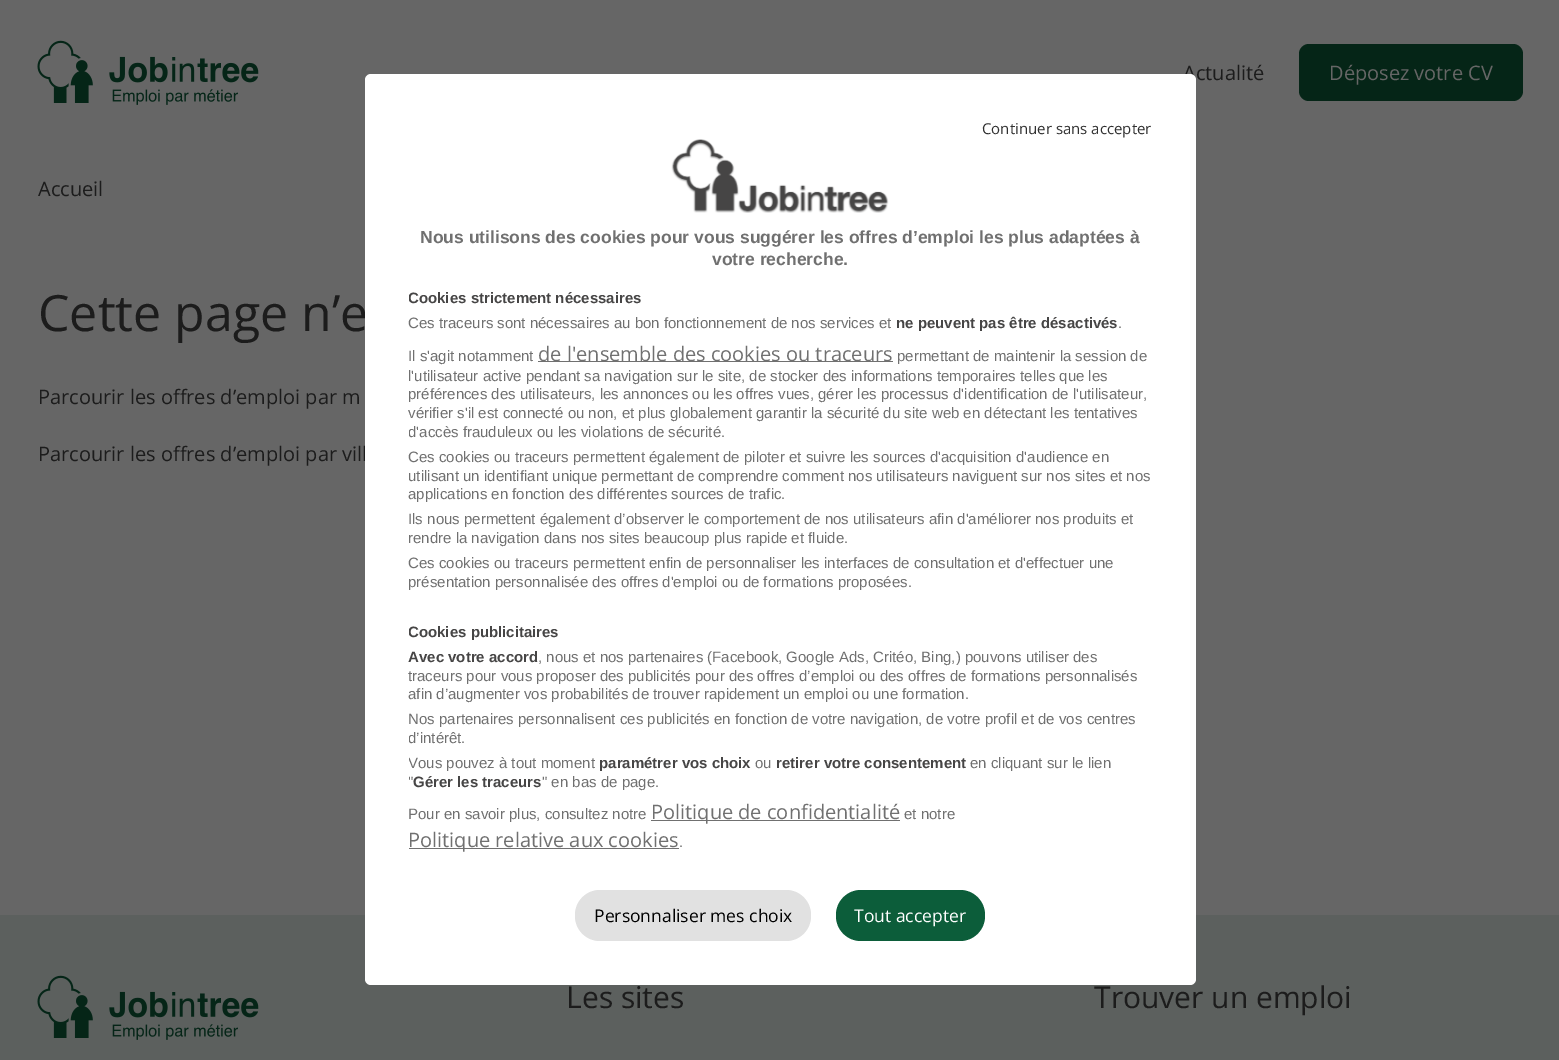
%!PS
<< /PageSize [1559 1060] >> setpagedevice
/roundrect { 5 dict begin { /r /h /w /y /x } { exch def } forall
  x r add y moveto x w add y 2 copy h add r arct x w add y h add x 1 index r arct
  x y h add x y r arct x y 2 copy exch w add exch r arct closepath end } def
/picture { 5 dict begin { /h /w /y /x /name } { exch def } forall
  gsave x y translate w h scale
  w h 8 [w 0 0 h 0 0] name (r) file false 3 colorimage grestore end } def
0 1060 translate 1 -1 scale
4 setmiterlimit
0.4 setgray
0 0 1559 1060 rectfill
(img1.rgb) 37 40 222 65 picture
/OpenSans-Regular [20 0 0 -20 0 0] selectfont
0.11 setgray
1183 80 moveto (Actualité) show
0.02 0.145 0.09 setrgbcolor
1299 44 224 57 10 roundrect fill
0.4 setgray
1329 80 moveto (Déposez votre CV) show
0.11 setgray
38 196 moveto (Accueil) show
/OpenSans-Regular [50 0 0 -50 0 0] selectfont
38 331 moveto (Cette page n’e) show
/OpenSans-Regular [20 0 0 -20 0 0] selectfont
38 404 moveto (Parcourir les offres d’emploi par m) show
38 461 moveto (Parcourir les offres d’emploi par vill) show
0.361 0.376 0.369 setrgbcolor
0 915 1559 145 rectfill
1 setgray
365 74 831 911 6 roundrect fill
/OpenSans-Regular [15 0 0 -15 0 0] selectfont
0.188 setgray
982 134 moveto (Continuer sans accepter) show
(img2.rgb) 671 139 218 74 picture
/LiberationSans-Bold [17.5 0 0 -17.5 0 0] selectfont
0.439 setgray
420 243 moveto (Nous utilisons des cookies pour vous suggérer les offres d’emploi les plus adaptées à) show
712 265 moveto (votre recherche.) show
gsave
409 289 744 570 rectclip
/LiberationSans-Bold [15 0 0 -15 0 0] selectfont
0.275 0.271 0.271 setrgbcolor
408 303 moveto (Cookies strictement nécessaires) show
grestore
/LiberationSans-Regular [15 0 0 -15 0 0] selectfont
408 328 moveto (Ces traceurs sont nécessaires au bon fonctionnement de nos services et) show
/LiberationSans-Bold [15 0 0 -15 0 0] selectfont
0.275 0.271 0.271 setrgbcolor
896 328 moveto (ne peuvent pas être désactivés) show
/LiberationSans-Regular [15 0 0 -15 0 0] selectfont
0.439 setgray
1118 328 moveto (.) show
408 361 moveto (Il s'agit notamment) show
538 361 355 1 rectfill
/OpenSans-Regular [20 0 0 -20 0 0] selectfont
538 361 moveto (de l'ensemble des cookies ou traceurs) show
/LiberationSans-Regular [15 0 0 -15 0 0] selectfont
897 361 moveto (permettant de maintenir la session de) show
408 381 moveto (l'utilisateur active pendant sa navigation sur le site, de stocker des informations temporaires telles que les) show
408 399 moveto (préférences des utilisateurs, les annonces ou les offres vues, gérer les processus d'identification de l'utilisateur,) show
408 418 moveto (vérifier s'il est connecté ou non, et plus globalement garantir la sécurité du site web en détectant les tentatives) show
gsave
409 289 744 570 rectclip
408 437 moveto (d'accès frauduleux ou les violations de sécurité.) show
grestore
408 462 moveto (Ces cookies ou traceurs permettent également de piloter et suivre les sources d'acquisition d'audience en) show
408 481 moveto (utilisant un identifiant unique permettant de comprendre comment nos utilisateurs naviguent sur nos sites et nos) show
408 499 moveto (applications en fonction des différentes sources de trafic.) show
408 524 moveto (Ils nous permettent également d’observer le comportement de nos utilisateurs afin d'améliorer nos produits et) show
408 543 moveto (rendre la navigation dans nos sites beaucoup plus rapide et fluide.) show
408 568 moveto (Ces cookies ou traceurs permettent enfin de personnaliser les interfaces de consultation et d'effectuer une) show
408 587 moveto (présentation personnalisée des offres d'emploi ou de formations proposées.) show
gsave
409 289 744 570 rectclip
/LiberationSans-Bold [15 0 0 -15 0 0] selectfont
0.275 0.271 0.271 setrgbcolor
408 637 moveto (Cookies publicitaires) show
grestore
/LiberationSans-Bold [15 0 0 -15 0 0] selectfont
0.275 0.271 0.271 setrgbcolor
408 662 moveto (Avec votre accord) show
/LiberationSans-Regular [15 0 0 -15 0 0] selectfont
0.439 setgray
538 662 moveto (, nous et nos partenaires \(Facebook, Google Ads, Critéo, Bing,\) pouvons utiliser des) show
408 681 moveto (traceurs pour vous proposer des publicités pour des offres d’emploi ou des offres de formations personnalisés) show
408 699 moveto (afin d’augmenter vos probabilités de trouver rapidement un emploi ou une formation.) show
408 724 moveto (Nos partenaires personnalisent ces publicités en fonction de votre navigation, de votre profil et de vos centres) show
gsave
409 289 744 570 rectclip
408 743 moveto (d’intérêt.) show
408 768 moveto (Vous pouvez à tout moment) show
grestore
/LiberationSans-Bold [15 0 0 -15 0 0] selectfont
0.275 0.271 0.271 setrgbcolor
599 768 moveto (paramétrer vos choix) show
/LiberationSans-Regular [15 0 0 -15 0 0] selectfont
0.439 setgray
755 768 moveto (ou) show
/LiberationSans-Bold [15 0 0 -15 0 0] selectfont
0.275 0.271 0.271 setrgbcolor
776 768 moveto (retirer votre consentement) show
/LiberationSans-Regular [15 0 0 -15 0 0] selectfont
0.439 setgray
970 768 moveto (en cliquant sur le lien) show
gsave
409 289 744 570 rectclip
408 787 moveto (") show
grestore
/LiberationSans-Bold [15 0 0 -15 0 0] selectfont
0.275 0.271 0.271 setrgbcolor
413 787 moveto (Gérer les traceurs) show
/LiberationSans-Regular [15 0 0 -15 0 0] selectfont
0.439 setgray
542 787 moveto (" en bas de page.) show
408 819 moveto (Pour en savoir plus, consultez notre) show
651 820 249 1 rectfill
/OpenSans-Regular [20 0 0 -20 0 0] selectfont
651 819 moveto (Politique de confidentialité) show
/LiberationSans-Regular [15 0 0 -15 0 0] selectfont
904 819 moveto (et notre) show
409 848 270 1 rectfill
/OpenSans-Regular [20 0 0 -20 0 0] selectfont
408 847 moveto (Politique relative aux cookies) show
/LiberationSans-Regular [15 0 0 -15 0 0] selectfont
679 847 moveto (.) show
0.882 setgray
575 890 236 51 25 roundrect fill
/OpenSans-Regular [17.5 0 0 -17.5 0 0] selectfont
0 setgray
594 922 moveto (Personnaliser mes choix) show
0.047 0.365 0.227 setrgbcolor
836 890 149 51 25 roundrect fill
1 setgray
854 922 moveto (Tout accepter) show
(img3.rgb) 37 975 222 65 picture
/OpenSans-Regular [30 0 0 -30 0 0] selectfont
0.11 setgray
566 1008 moveto (Les sites) show
1094 1008 moveto (Trouver un emploi) show
showpage
